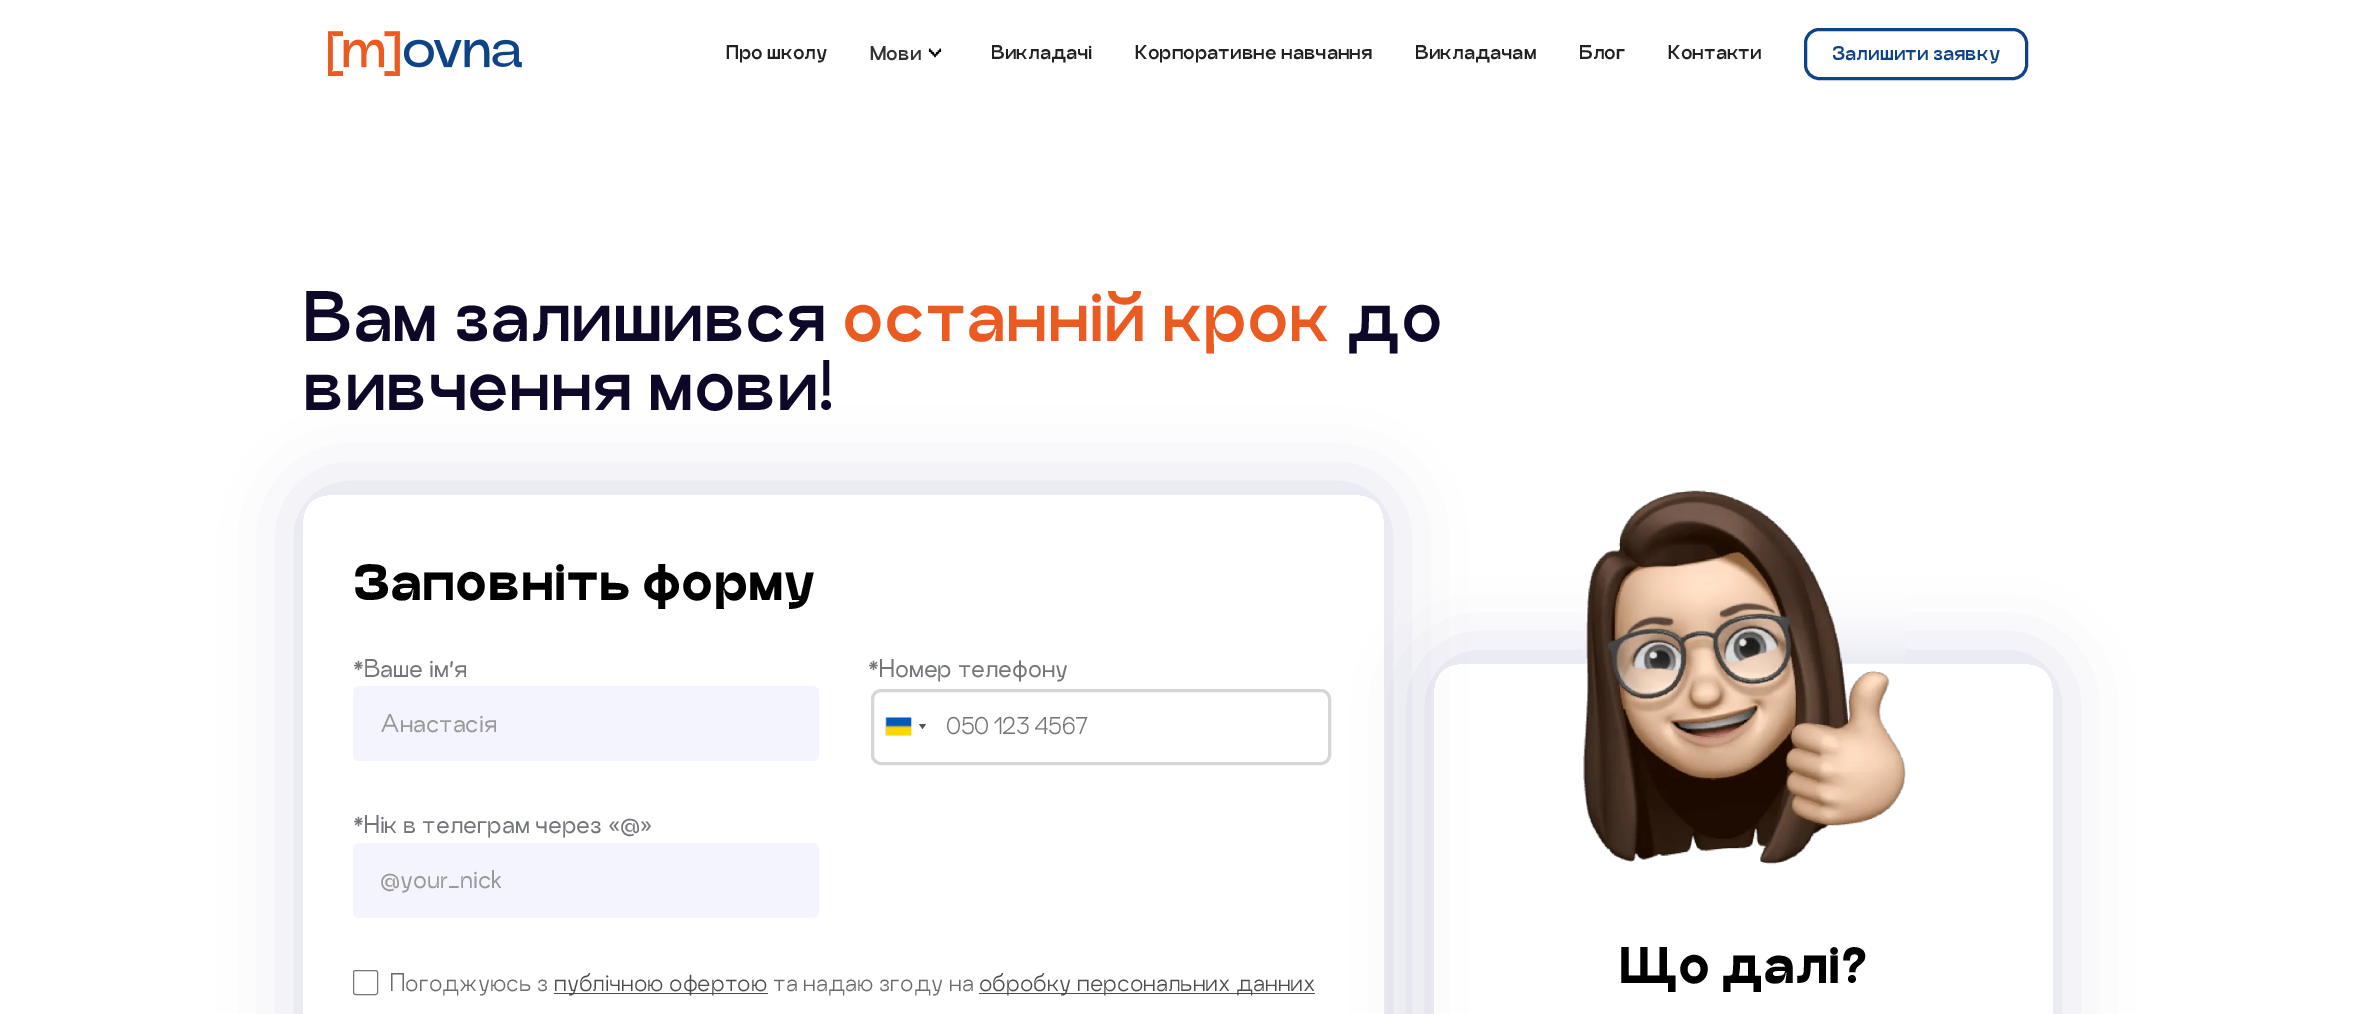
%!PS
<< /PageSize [2354 1014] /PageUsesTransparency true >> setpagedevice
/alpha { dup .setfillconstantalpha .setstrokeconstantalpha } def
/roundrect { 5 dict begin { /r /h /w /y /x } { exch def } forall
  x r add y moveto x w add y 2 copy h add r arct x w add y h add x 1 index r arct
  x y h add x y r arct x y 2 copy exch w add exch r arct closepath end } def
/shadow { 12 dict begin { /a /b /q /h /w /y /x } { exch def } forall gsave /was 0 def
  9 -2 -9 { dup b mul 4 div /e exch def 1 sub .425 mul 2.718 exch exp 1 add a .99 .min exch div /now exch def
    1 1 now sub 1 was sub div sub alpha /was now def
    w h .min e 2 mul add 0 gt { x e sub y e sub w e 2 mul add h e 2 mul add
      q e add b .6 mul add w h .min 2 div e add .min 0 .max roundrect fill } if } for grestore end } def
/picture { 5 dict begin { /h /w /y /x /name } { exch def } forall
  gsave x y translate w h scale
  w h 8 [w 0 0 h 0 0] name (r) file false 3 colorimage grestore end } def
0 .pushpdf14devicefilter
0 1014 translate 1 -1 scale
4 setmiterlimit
1 setgray
0 0 2354 1014 rectfill
(img1.rgb) 328 31 194 45 picture
/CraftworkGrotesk-Bold [17.5 0 0 -17.5 0 0] selectfont
0.133 setgray
726 59 moveto (Про школу) show
0.2 setgray
870 60 moveto (Мови) show
(img2.rgb) 928 48 14 10 picture
0.133 setgray
991 59 moveto (Викладачі) show
1135 59 moveto (Корпоративне навчання) show
1415 59 moveto (Викладачам) show
1579 59 moveto (Блог) show
1668 59 moveto (Контакти) show
0.055 0.267 0.525 setrgbcolor
3 setlinewidth
1805.5 29.5 221 49 13.5 roundrect stroke
1832 60 moveto (Залишити заявку) show
/CraftworkGrotesk-Bold [62.5 0 0 -62.5 0 0] selectfont
0.055 0.027 0.157 setrgbcolor
303 341 moveto (Вам залишився) show
0.922 0.353 0.129 setrgbcolor
842 341 moveto (останній крок) show
0.055 0.027 0.157 setrgbcolor
1346 341 moveto (до) show
303 410 moveto (вивчення мови!) show
gsave
newpath 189 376 moveto 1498 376 lineto 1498 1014 lineto 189 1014 lineto closepath 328 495 moveto 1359 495 lineto 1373 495 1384 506 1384 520 curveto 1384 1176 lineto 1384 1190 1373 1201 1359 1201 curveto 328 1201 lineto 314 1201 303 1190 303 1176 curveto 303 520 lineto 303 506 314 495 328 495 curveto closepath eoclip newpath
0.008 0 0.439 setrgbcolor
303 490 1081 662 25 37.5 0.15 shadow
grestore
/CraftworkGrotesk-Black [45 0 0 -45 0 0] selectfont
0 setgray
353 600 moveto (Заповніть форму) show
/CraftworkGrotesk-Medium [22.5 0 0 -22.5 0 0] selectfont
0.455 0.463 0.486 setrgbcolor
353 677 moveto (*Ваше ім’я) show
0.953 0.957 1 setrgbcolor
353 686 466 75 6 roundrect fill
0.6 setgray
380 732 moveto (Анастасія) show
0.455 0.463 0.486 setrgbcolor
868 677 moveto (*Номер телефону) show
0.839 setgray
872.5 690.5 457 73 8.5 roundrect stroke
0.533 setgray
886 718 25 17 0 0.5 1 shadow
(img3.rgb) 886 717 26 18 picture
0.333 setgray
newpath 919 724 moveto 926 724 lineto 922.5 729 lineto closepath fill
/CraftworkGrotesk-Regular [21.25 0 0 -21.25 0 0] selectfont
0.459 setgray
946 734 moveto -0.5 0 (050 123 4567) ashow
/CraftworkGrotesk-Medium [22.5 0 0 -22.5 0 0] selectfont
0.455 0.463 0.486 setrgbcolor
353 833 moveto (*Нік в телеграм через «@») show
0.953 0.957 1 setrgbcolor
353 843 466 75 6 roundrect fill
0.6 setgray
380 888 moveto (@your_nick) show
0.463 setgray
1 setlinewidth
353.5 970.5 24 24 2 roundrect stroke
/CraftworkGrotesk-Regular [22.5 0 0 -22.5 0 0] selectfont
0.42 setgray
390 991 moveto (Погоджуюсь з) show
0.302 setgray
554 993 214 1 rectfill
0.298 setgray
554 991 moveto (публічною офертою) show
0.42 setgray
773 991 moveto (та надаю згоду на) show
0.302 setgray
979 993 336 1 rectfill
0.298 setgray
979 991 moveto (обробку персональних данних) show
gsave
newpath 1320 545 moveto 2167 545 lineto 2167 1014 lineto 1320 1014 lineto closepath 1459 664 moveto 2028 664 lineto 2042 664 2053 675 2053 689 curveto 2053 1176 lineto 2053 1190 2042 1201 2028 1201 curveto 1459 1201 lineto 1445 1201 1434 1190 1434 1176 curveto 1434 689 lineto 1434 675 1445 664 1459 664 curveto closepath eoclip newpath
0.008 0 0.439 setrgbcolor
1434 659 619 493 25 37.5 0.15 shadow
grestore
(img4.rgb) 1583 490 323 375 picture
/CraftworkGrotesk-Black [45 0 0 -45 0 0] selectfont
0 setgray
1619 983 moveto (Що далі?) show
.poppdf14devicefilter showpage
